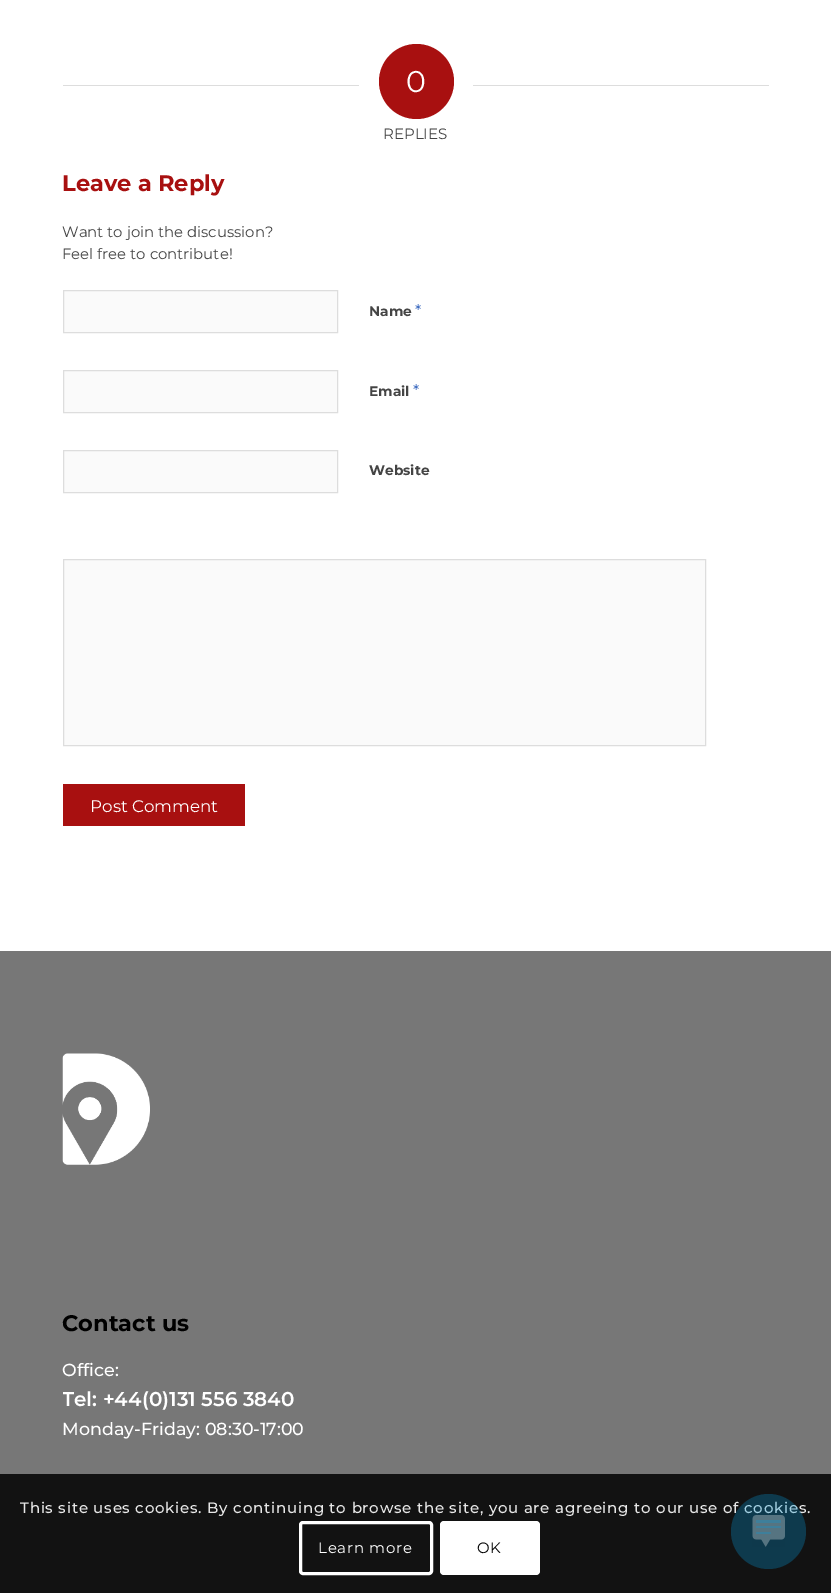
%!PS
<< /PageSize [831 1593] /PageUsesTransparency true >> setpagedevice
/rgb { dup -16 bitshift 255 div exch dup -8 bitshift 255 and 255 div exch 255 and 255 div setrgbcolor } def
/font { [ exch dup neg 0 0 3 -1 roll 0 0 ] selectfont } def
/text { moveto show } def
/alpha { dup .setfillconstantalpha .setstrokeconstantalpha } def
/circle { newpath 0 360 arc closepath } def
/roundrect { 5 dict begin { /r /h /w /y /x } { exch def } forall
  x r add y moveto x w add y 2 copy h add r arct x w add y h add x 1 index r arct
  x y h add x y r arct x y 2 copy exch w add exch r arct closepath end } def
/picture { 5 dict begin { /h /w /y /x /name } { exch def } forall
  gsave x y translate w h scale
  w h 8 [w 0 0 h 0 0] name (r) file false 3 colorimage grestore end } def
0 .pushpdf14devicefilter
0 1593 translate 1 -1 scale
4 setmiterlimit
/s1 { /Montserrat-Regular 30 font 16#FFFFFF rgb } def
/s2 { /Montserrat-Regular 15 font 16#444444 rgb } def
/s3 { /Montserrat-Bold 22.5 font 16#A81010 rgb } def
/s4 { /Montserrat-Regular 14.9 font 16#444444 rgb } def
/s5 { /Montserrat-Bold 13.75 font 16#444444 rgb } def
/s6 { /Montserrat-Regular 16 font 16#2C5EBA rgb } def
/s7 { /Montserrat-Regular 16.75 font 16#FFFFFF rgb } def
/s8 { /Montserrat-Bold 22.5 font 16#000000 rgb } def
/s9 { /Montserrat-Medium 17.5 font 16#FFFFFF rgb } def
/s10 { /Montserrat-SemiBold 20 font 16#FFFFFF rgb } def
16#FFFFFF rgb
0 0 831 1593 rectfill
16#DDDDDD rgb
63 85 296 1 rectfill
16#A81010 rgb
416.5 81.5 37.5 circle fill
s1
(0) 406 92 text
16#DDDDDD rgb
473 85 296 1 rectfill
s2
(REPLIES) 383 139 text
s3
(Leave a Reply) 62 191 text
s4
(Want to join the discussion?) 62 237 text
(Feel free to contribute!) 62 259 text
16#FAFAFA rgb
63.5 290.5 moveto 337.5 290.5 lineto 337.5 332.5 lineto 63.5 332.5 lineto closepath gsave fill grestore
16#DDDDDD rgb
stroke
s5
(Name) 369 316 text
s6
(*) 415 316 text
16#FAFAFA rgb
63.5 370.5 moveto 337.5 370.5 lineto 337.5 412.5 lineto 63.5 412.5 lineto closepath gsave fill grestore
16#DDDDDD rgb
stroke
s5
(Email) 369 396 text
s6
(*) 413 396 text
16#FAFAFA rgb
63.5 450.5 moveto 337.5 450.5 lineto 337.5 492.5 lineto 63.5 492.5 lineto closepath gsave fill grestore
16#DDDDDD rgb
stroke
s5
(Website) 369 475 text
16#FAFAFA rgb
63.5 559.5 moveto 705.5 559.5 lineto 705.5 745.5 lineto 63.5 745.5 lineto closepath gsave fill grestore
16#DDDDDD rgb
stroke
16#A81010 rgb
63 784 182 42 rectfill
s7
(Post Comment) 90 812 text
16#777777 rgb
0 951 831 642 rectfill
(pic1.raw) 62 1053 88 112 picture
s8
(Contact us) 62 1331 text
s9
(Office:) 62 1376 text
gsave
63 1289 706 287 rectclip
s10
(Tel: +44\(0\)131 556 3840) 62 1406 text
grestore
(Monday-Friday: 08:30-17:00) 62 1435 text
0.85 alpha
16#000000 rgb
0 1474 831 119 rectfill
/Montserrat-Medium 15 font
1 alpha
16#E7E7E7 rgb
20 1513 moveto 0.75 0 (This site uses cookies. By continuing to browse the site, you are agreeing to our use of cookies.) ashow
0.3 alpha
16#0596D4 rgb
768.5 1531.5 37.5 circle fill
1 alpha
(pic2.raw) 752 1515 33 32 picture
16#FFFFFF rgb
3 setlinewidth
300.5 1522.5 131 51 2.5 roundrect stroke
/Montserrat-Regular 15 font
318 1553 moveto 0.75 0 (Learn more) ashow
440 1521 100 54 4 roundrect fill
16#000000 rgb
477 1553 moveto 0.75 0 (OK) ashow
.poppdf14devicefilter showpage
